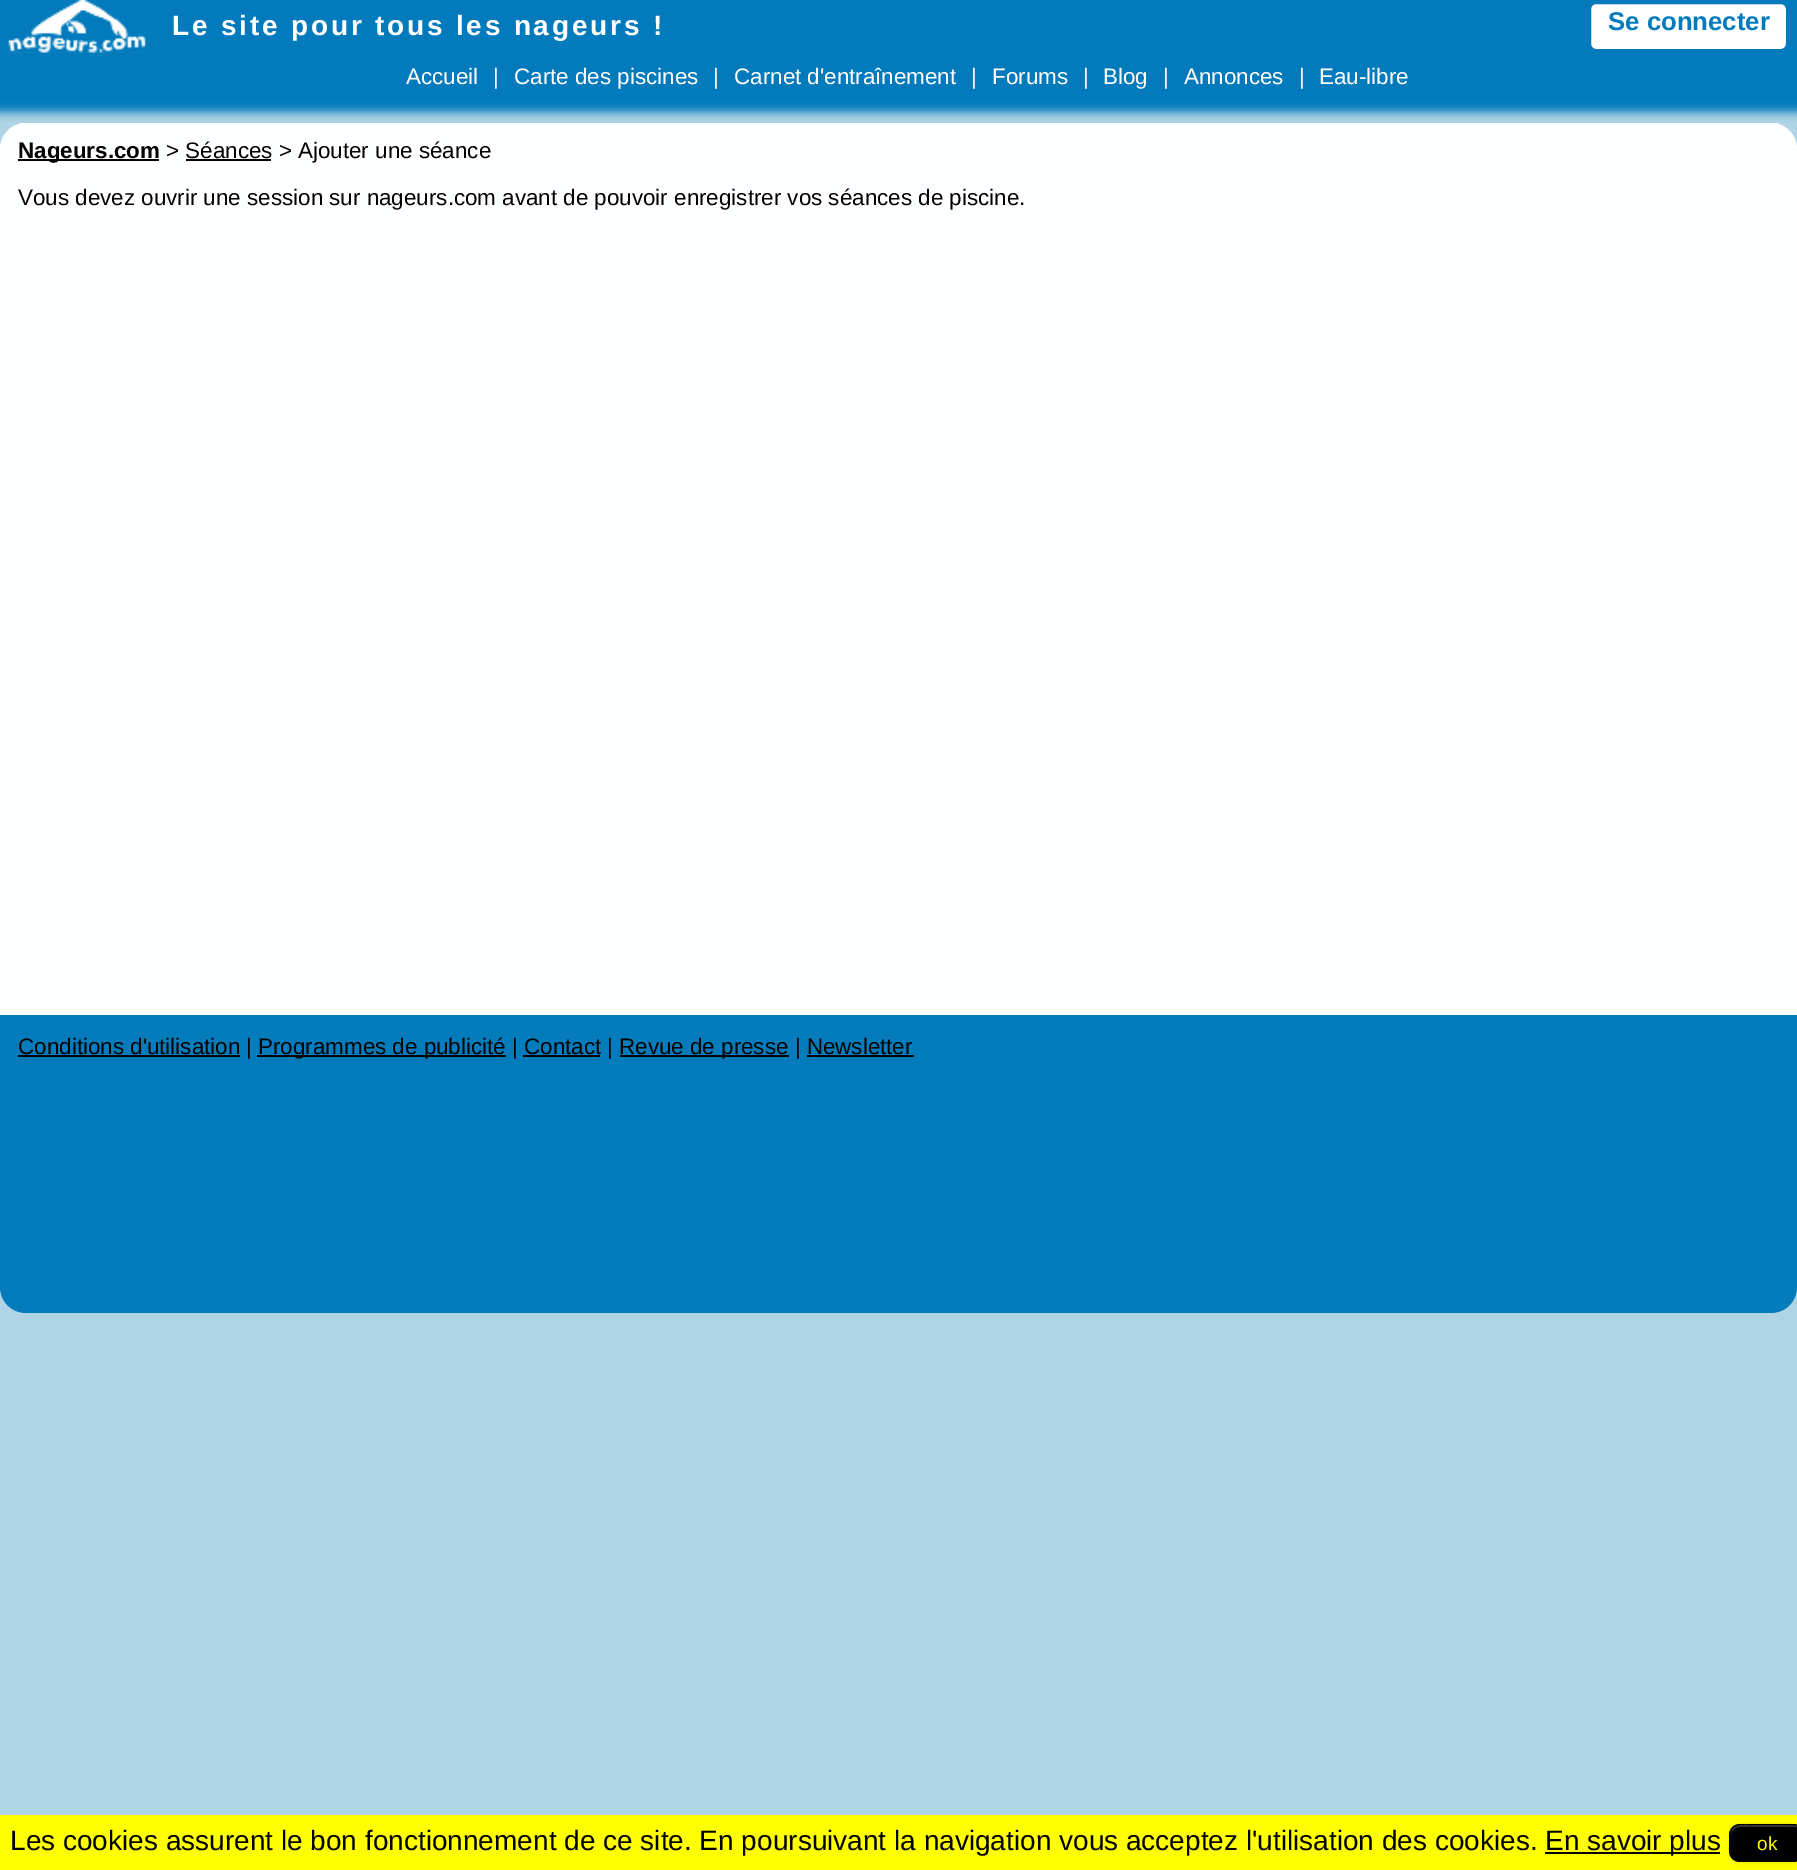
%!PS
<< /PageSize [1797 1870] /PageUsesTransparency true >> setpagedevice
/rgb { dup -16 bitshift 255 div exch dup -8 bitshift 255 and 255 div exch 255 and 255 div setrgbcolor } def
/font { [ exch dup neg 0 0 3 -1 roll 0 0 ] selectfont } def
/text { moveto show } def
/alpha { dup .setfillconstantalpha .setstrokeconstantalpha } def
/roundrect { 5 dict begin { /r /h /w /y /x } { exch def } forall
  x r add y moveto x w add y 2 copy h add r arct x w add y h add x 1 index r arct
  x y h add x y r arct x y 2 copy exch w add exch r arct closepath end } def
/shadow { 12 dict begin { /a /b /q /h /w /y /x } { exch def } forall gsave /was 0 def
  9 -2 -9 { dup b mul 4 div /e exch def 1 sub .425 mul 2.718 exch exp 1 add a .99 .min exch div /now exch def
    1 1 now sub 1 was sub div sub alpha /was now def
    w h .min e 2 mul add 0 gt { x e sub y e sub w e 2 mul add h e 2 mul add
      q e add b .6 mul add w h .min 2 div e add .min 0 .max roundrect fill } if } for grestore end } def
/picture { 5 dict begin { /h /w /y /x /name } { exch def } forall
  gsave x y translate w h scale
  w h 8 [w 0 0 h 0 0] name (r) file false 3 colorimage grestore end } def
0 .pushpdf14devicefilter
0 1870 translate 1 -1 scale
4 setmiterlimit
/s1 { /LiberationSans-Bold 25.75 font 16#027ABB rgb } def
/s2 { /LiberationSans-Regular 22.4 font 16#FFFFFF rgb } def
/s3 { /LiberationSans-Bold 22.4 font 16#020202 rgb } def
/s4 { /LiberationSans-Regular 22.4 font 16#020202 rgb } def
/s5 { /LiberationSans-Regular 28 font 16#020202 rgb } def
/s6 { /LiberationSans-Regular 19 font 16#FFFF00 rgb } def
16#AED4E5 rgb
0 0 1797 1870 rectfill
16#027ABB rgb
-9 44 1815 68 0 4.5 1 shadow
0 53 1797 50 rectfill
-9 -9 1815 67 0 4.5 1 shadow
0 0 1797 39 rectfill
(pic1.raw) 8 0 138 53 picture
/LiberationSans-Bold 28 font
16#FFFFFF rgb
172 35 moveto 2.8 0 (Le site pour tous les nageurs !) ashow
1589 2 199 49 7 roundrect gsave fill grestore
16#027ABB rgb
4 setlinewidth
stroke
s1
(Se connecter) 1608 30 text
s2
(Accueil) 406 84 text
(|) 493 84 text
(Carte des piscines) 514 84 text
(|) 713 84 text
(Carnet d'entraînement) 734 84 text
(|) 971 84 text
(Forums) 992 84 text
(|) 1083 84 text
(Blog) 1103 84 text
(|) 1163 84 text
(Annonces) 1184 84 text
(|) 1299 84 text
(Eau-libre) 1319 84 text
16#FEFFFF rgb
0 123 1797 1190 26 roundrect fill
gsave
0 123 1797 1190 26 roundrect clip newpath
18 123 1762 875 rectfill
grestore
16#020202 rgb
18 159 141 2 rectfill
s3
(Nageurs.com) 18 158 text
s4
(> Séances > Ajouter une séance) 166 158 text
186 159 85 2 rectfill
(Vous devez ouvrir une session sur nageurs.com avant de pouvoir enregistrer vos séances de piscine.) 18 205 text
16#047BBB rgb
0 1015 moveto 1797 1015 lineto 1797 1287 lineto 1797 1301.5 1785.5 1313 1771 1313 curveto 26 1313 lineto 11.5 1313 0 1301.5 0 1287 curveto closepath fill
16#020202 rgb
18 1055 222 2 rectfill
(Conditions d'utilisation |) 18 1054 text
257 1055 249 2 rectfill
(Programmes de publicité | Contact |) 258 1054 text
620 1055 169 2 rectfill
(Revue de presse | Newsletter) 619 1054 text
523 1055 77 2 rectfill
807 1055 107 2 rectfill
16#FFFF00 rgb
0 1815 1797 55 rectfill
s5
(Les cookies assurent le bon fonctionnement de ce site. En poursuivant la navigation vous acceptez l'utilisation des cookies.) 10 1850 text
16#000000 rgb
1545 1852 175 2 rectfill
s5
(En savoir plus) 1545 1850 text
16#000000 rgb
1729 1825 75 39 11 2 0.05 shadow
1729 1824 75 38 11 roundrect fill
16#333333 rgb
1740 1827 moveto 1785 1827 lineto 1792 1827 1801 1825 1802 1834 curveto 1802 1856 lineto 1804 1851 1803 1844 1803 1840 curveto 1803 1825 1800 1825 1785 1825 curveto 1749 1825 lineto 1739 1825 1731 1824 1731 1836 curveto 1731 1831 1735 1827 1740 1827 curveto closepath fill
0.25 alpha
16#000000 rgb
1.8 setlinewidth
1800.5 1858.5 moveto 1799 1860 1796.5 1861 1794 1861 curveto 1739.5 1861 lineto 1737 1861 1734.5 1860 1732.5 1858.5 curveto stroke
0.1 alpha
1732.5 1858.5 moveto 1728 1853.5 1730 1845.5 1730 1840 curveto 1730 1824 1733.5 1824.5 1748.5 1824.5 curveto 1784.5 1824.5 lineto 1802.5 1824.5 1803.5 1825.5 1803.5 1843 curveto 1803.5 1848 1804.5 1854.5 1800.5 1858.5 curveto stroke
1 alpha
s6
(ok) 1757 1850 text
.poppdf14devicefilter showpage
